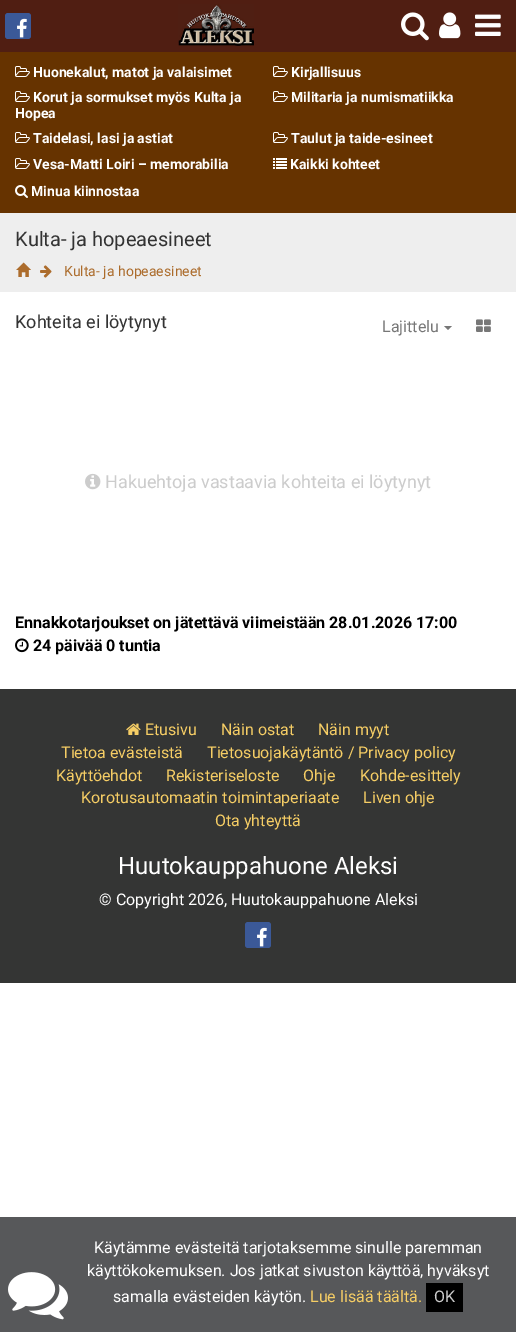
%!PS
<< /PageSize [516 1332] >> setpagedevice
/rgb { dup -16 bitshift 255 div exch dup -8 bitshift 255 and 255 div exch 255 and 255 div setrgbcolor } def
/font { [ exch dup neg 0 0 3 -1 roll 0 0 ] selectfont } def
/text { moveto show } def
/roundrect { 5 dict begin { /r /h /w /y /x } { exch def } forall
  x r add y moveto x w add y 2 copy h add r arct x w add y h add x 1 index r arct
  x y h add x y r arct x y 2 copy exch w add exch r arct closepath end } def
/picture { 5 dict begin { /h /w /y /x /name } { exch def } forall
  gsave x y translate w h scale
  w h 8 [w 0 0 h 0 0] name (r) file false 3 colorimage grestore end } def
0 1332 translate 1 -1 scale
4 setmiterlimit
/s1 { /Roboto-Bold 14 font 16#FFFFFF rgb } def
/s2 { /Roboto-Regular 20 font 16#333333 rgb } def
/s3 { /Roboto-Regular 14 font 16#AC6C2C rgb } def
/s4 { /Roboto-Regular 18 font 16#333333 rgb } def
/s5 { /Roboto-Regular 16 font 16#777777 rgb } def
/s6 { /Roboto-Regular 18 font 16#CCCCCC rgb } def
/s7 { /Roboto-Bold 16 font 16#000000 rgb } def
/s8 { /Roboto-Regular 16 font 16#F5CD65 rgb } def
/s9 { /Roboto-Regular 24 font 16#FFFFFF rgb } def
/s10 { /Roboto-Regular 16 font 16#FFFFFF rgb } def
/s11 { /Roboto-Regular 16 font 16#CCCCCC rgb } def
16#FFFFFF rgb
0 0 516 1332 rectfill
16#501E12 rgb
0 0 516 52 rectfill
16#3B5998 rgb
5 13 26 26 3 roundrect fill
(pic1.raw) 17 18 10 20 picture
(pic2.raw) 178 4 76 42 picture
(pic3.raw) 401 12 28 29 picture
(pic4.raw) 439 12 22 27 picture
(pic5.raw) 475 14 26 22 picture
16#663300 rgb
0 52 516 161 rectfill
(pic6.raw) 15 66 15 11 picture
s1
(Huonekalut, matot ja valaisimet) 33 77 text
(pic6.raw) 273 66 15 11 picture
(Kirjallisuus) 291 77 text
(pic6.raw) 15 91 15 11 picture
(Korut ja sormukset myös Kulta ja) 33 102 text
(Hopea) 15 118 text
(pic6.raw) 273 91 15 11 picture
(Militaria ja numismatiikka) 291 102 text
(pic6.raw) 15 132 15 11 picture
(Taidelasi, lasi ja astiat) 33 143 text
(pic6.raw) 273 132 15 11 picture
(Taulut ja taide-esineet) 291 143 text
(pic6.raw) 15 158 15 11 picture
(Vesa-Matti Loiri – memorabilia) 33 169 text
(pic7.raw) 273 158 14 11 picture
(Kaikki kohteet) 290 169 text
(pic8.raw) 15 185 13 13 picture
(Minua kiinnostaa) 31 196 text
16#EEEEEE rgb
0 213 516 79 rectfill
s2
(Kulta- ja hopeaesineet) 15 246 text
(pic9.raw) 16 262 15 15 picture
(pic10.raw) 40 265 12 13 picture
s3
(Kulta- ja hopeaesineet) 64 276 text
s4
(Kohteita ei löytynyt) 15 328 text
s5
(Lajittelu) 382 332 text
444 326 moveto 452 326 lineto 448 330 lineto closepath fill
(pic11.raw) 476 319 15 13 picture
(pic12.raw) 85 473 16 17 picture
s6
(Hakuehtoja vastaavia kohteita ei löytynyt) 105 488 text
s7
(Ennakkotarjoukset on jätettävä viimeistään 28.01.2026 17:00) 15 628 text
(pic13.raw) 15 638 14 15 picture
(24 päivää 0 tuntia) 33 651 text
16#57585A rgb
0 1217 516 115 rectfill
(pic14.raw) 8 1272 60 48 picture
16#343534 rgb
0 689 516 294 rectfill
(pic15.raw) 126 723 15 12 picture
s8
(Etusivu) 145 735 text
(Näin ostat) 221 735 text
(Näin myyt) 318 735 text
(Tietoa evästeistä) 61 758 text
(Tietosuojakäytäntö / Privacy policy) 207 758 text
(Käyttöehdot) 56 781 text
(Rekisteriseloste) 166 781 text
(Ohje) 303 781 text
(Kohde-esittely) 360 781 text
(Korotusautomaatin toimintaperiaate) 81 803 text
(Liven ohje) 363 803 text
(Ota yhteyttä) 215 826 text
s9
(Huutokauppahuone Aleksi) 118 874 text
s10
(© Copyright 2026, Huutokauppahuone Aleksi) 99 905 text
16#3B5998 rgb
245 922 26 26 3 roundrect fill
(pic1.raw) 257 927 10 20 picture
s10
(Käytämme evästeitä tarjotaksemme sinulle paremman) 94 1253 text
(käyttökokemuksen. Jos jatkat sivuston käyttöä, hyväksyt) 87 1276 text
(samalla evästeiden käytön.) 113 1302 text
s8
(Lue lisää täältä.) 310 1302 text
16#000000 rgb
426 1283 37 29 rectfill
s11
(OK) 434 1302 text
showpage
